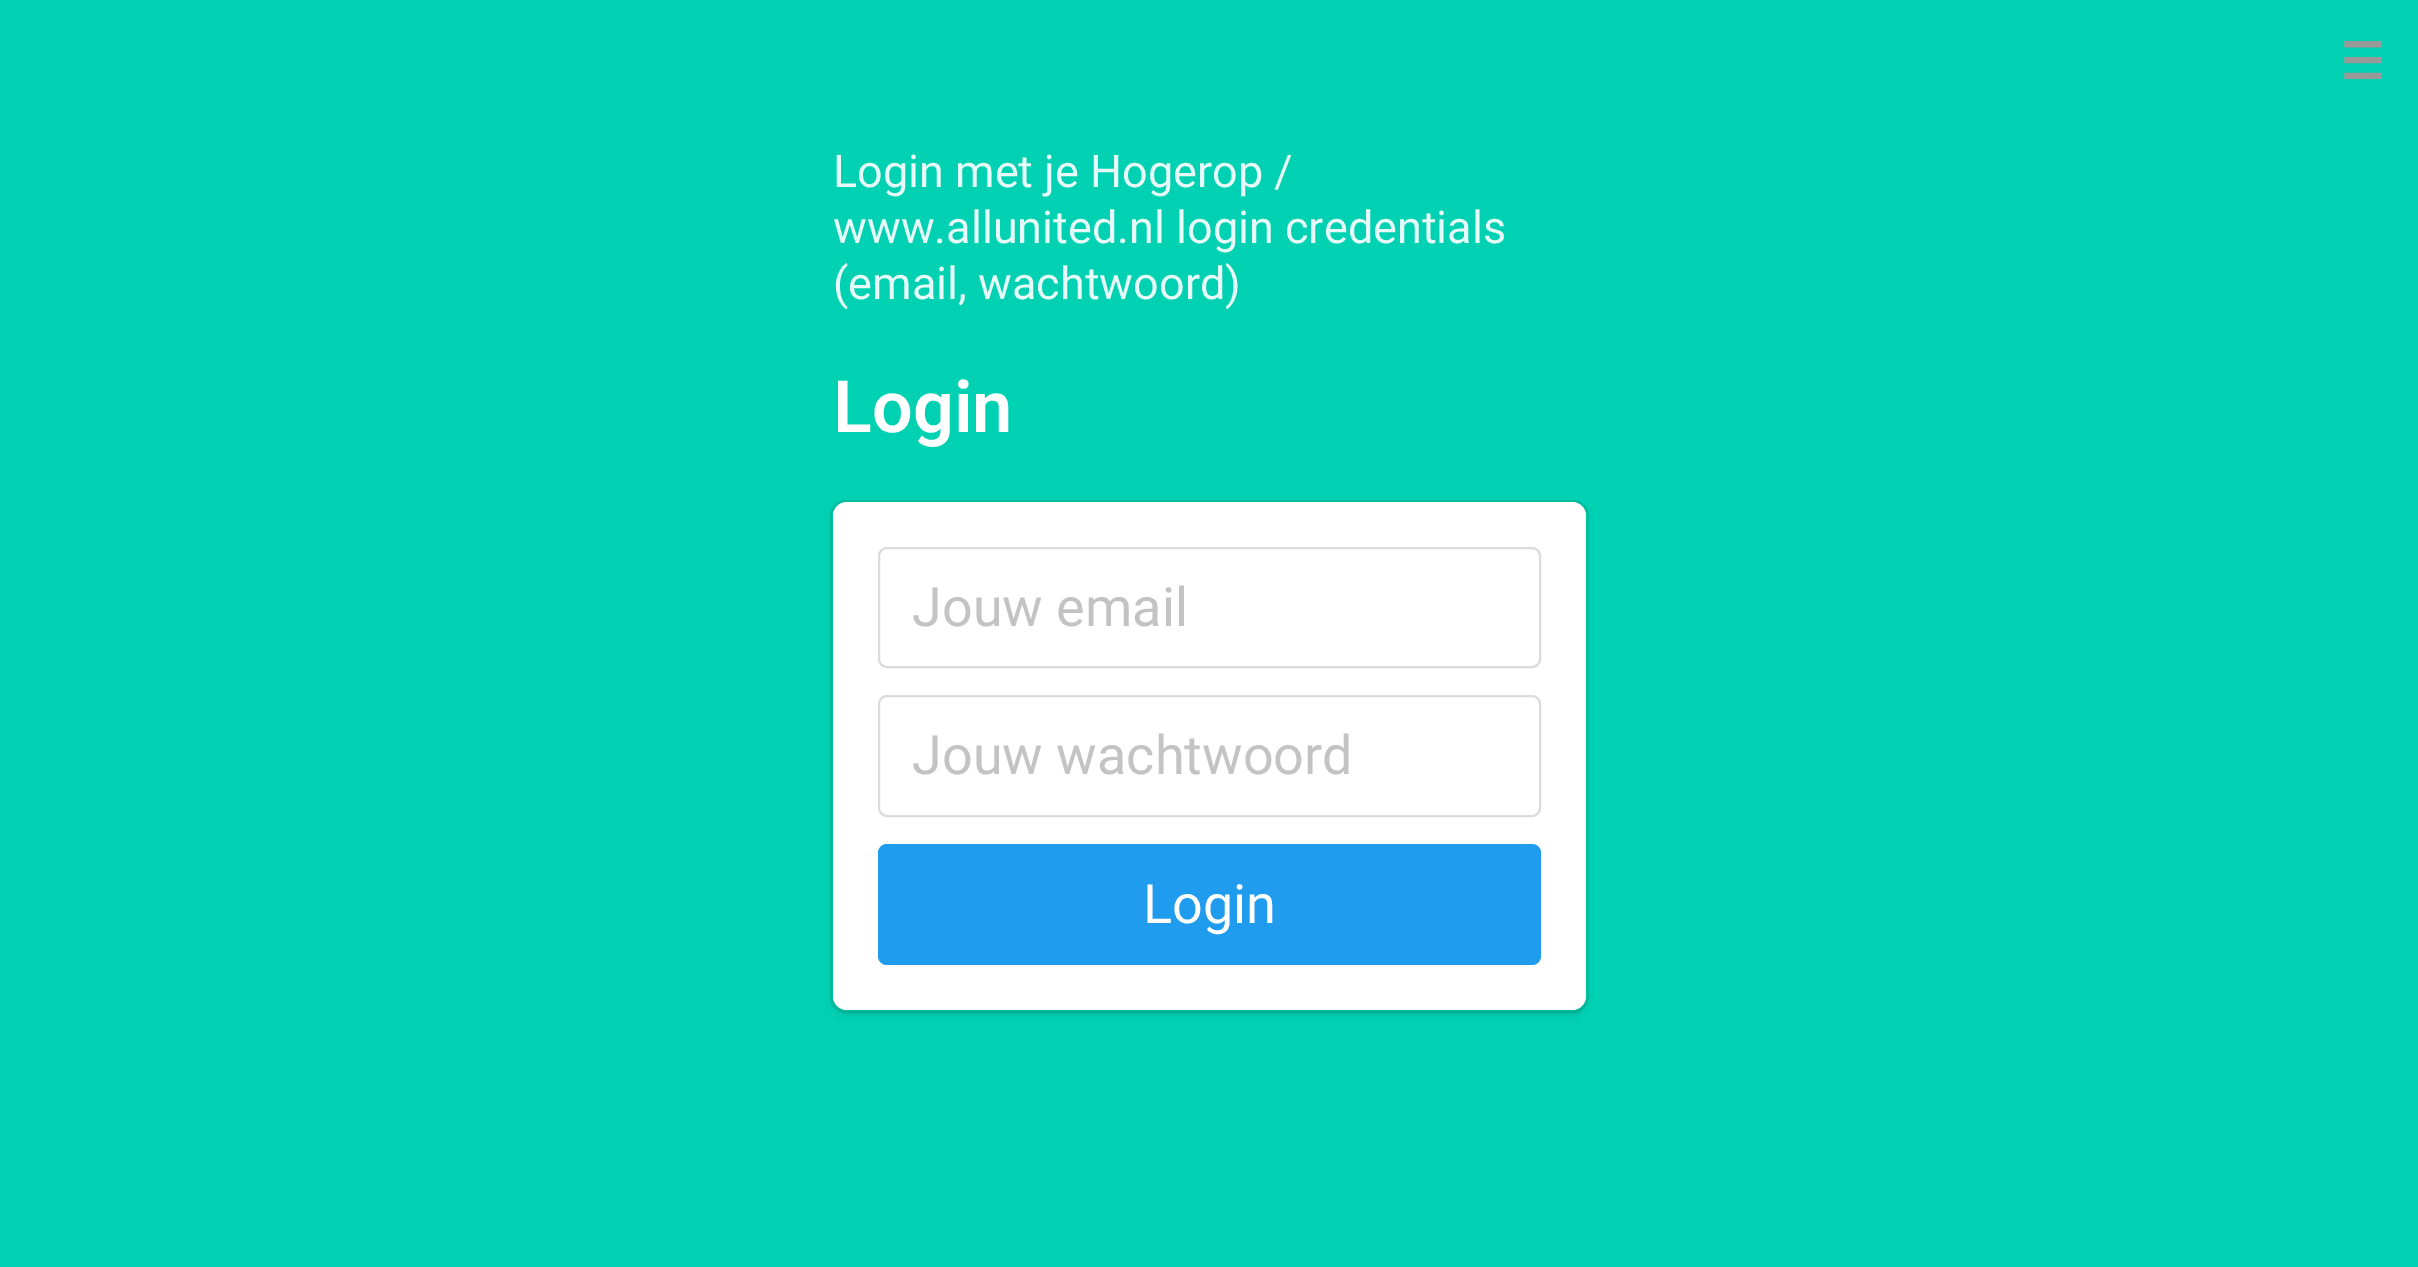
%!PS
<< /PageSize [2418 1267] /PageUsesTransparency true >> setpagedevice
/rgb { dup -16 bitshift 255 div exch dup -8 bitshift 255 and 255 div exch 255 and 255 div setrgbcolor } def
/font { [ exch dup neg 0 0 3 -1 roll 0 0 ] selectfont } def
/text { moveto show } def
/alpha { dup .setfillconstantalpha .setstrokeconstantalpha } def
/roundrect { 5 dict begin { /r /h /w /y /x } { exch def } forall
  x r add y moveto x w add y 2 copy h add r arct x w add y h add x 1 index r arct
  x y h add x y r arct x y 2 copy exch w add exch r arct closepath end } def
/shadow { 12 dict begin { /a /b /q /h /w /y /x } { exch def } forall gsave /was 0 def
  9 -2 -9 { dup b mul 4 div /e exch def 1 sub .425 mul 2.718 exch exp 1 add a .99 .min exch div /now exch def
    1 1 now sub 1 was sub div sub alpha /was now def
    w h .min e 2 mul add 0 gt { x e sub y e sub w e 2 mul add h e 2 mul add
      q e add b .6 mul add w h .min 2 div e add .min 0 .max roundrect fill } if } for grestore end } def
0 .pushpdf14devicefilter
0 1267 translate 1 -1 scale
4 setmiterlimit
/s1 { /DejaVuSans-Bold 50 font 16#999999 rgb } def
/s2 { /Roboto-Regular 45 font 16#E6FAF7 rgb } def
/s3 { /Roboto-SemiBold 72 font 16#FFFFFF rgb } def
/s4 { /Roboto-Regular 54 font 16#C3C3C3 rgb } def
/s5 { /Roboto-Regular 54 font 16#FFFFFF rgb } def
16#00D1B2 rgb
0 0 2418 1267 rectfill
s1
(☰) 2340 79 text
s2
(Login met je Hogerop /) 833 187 text
(www.allunited.nl login credentials) 833 243 text
(\(email, wachtwoord\)) 833 299 text
s3
(Login) 833 432 text
16#01BDA1 rgb
2 setlinewidth
831 501 757 511 15 roundrect stroke
16#0A0A0A rgb
833 506 753 509 14 3.5 0.1 shadow
16#FFFFFF rgb
833 502 753 508 14 roundrect fill
16#DBDBDB rgb
879 548 661 119 8 roundrect stroke
s4
(Jouw email) 912 626 text
16#DBDBDB rgb
879 696 661 120 8 roundrect stroke
s4
(Jouw wachtwoord) 912 774 text
16#209CEE rgb
878 844 663 121 9 roundrect fill
s5
(Login) 1143 923 text
.poppdf14devicefilter showpage
